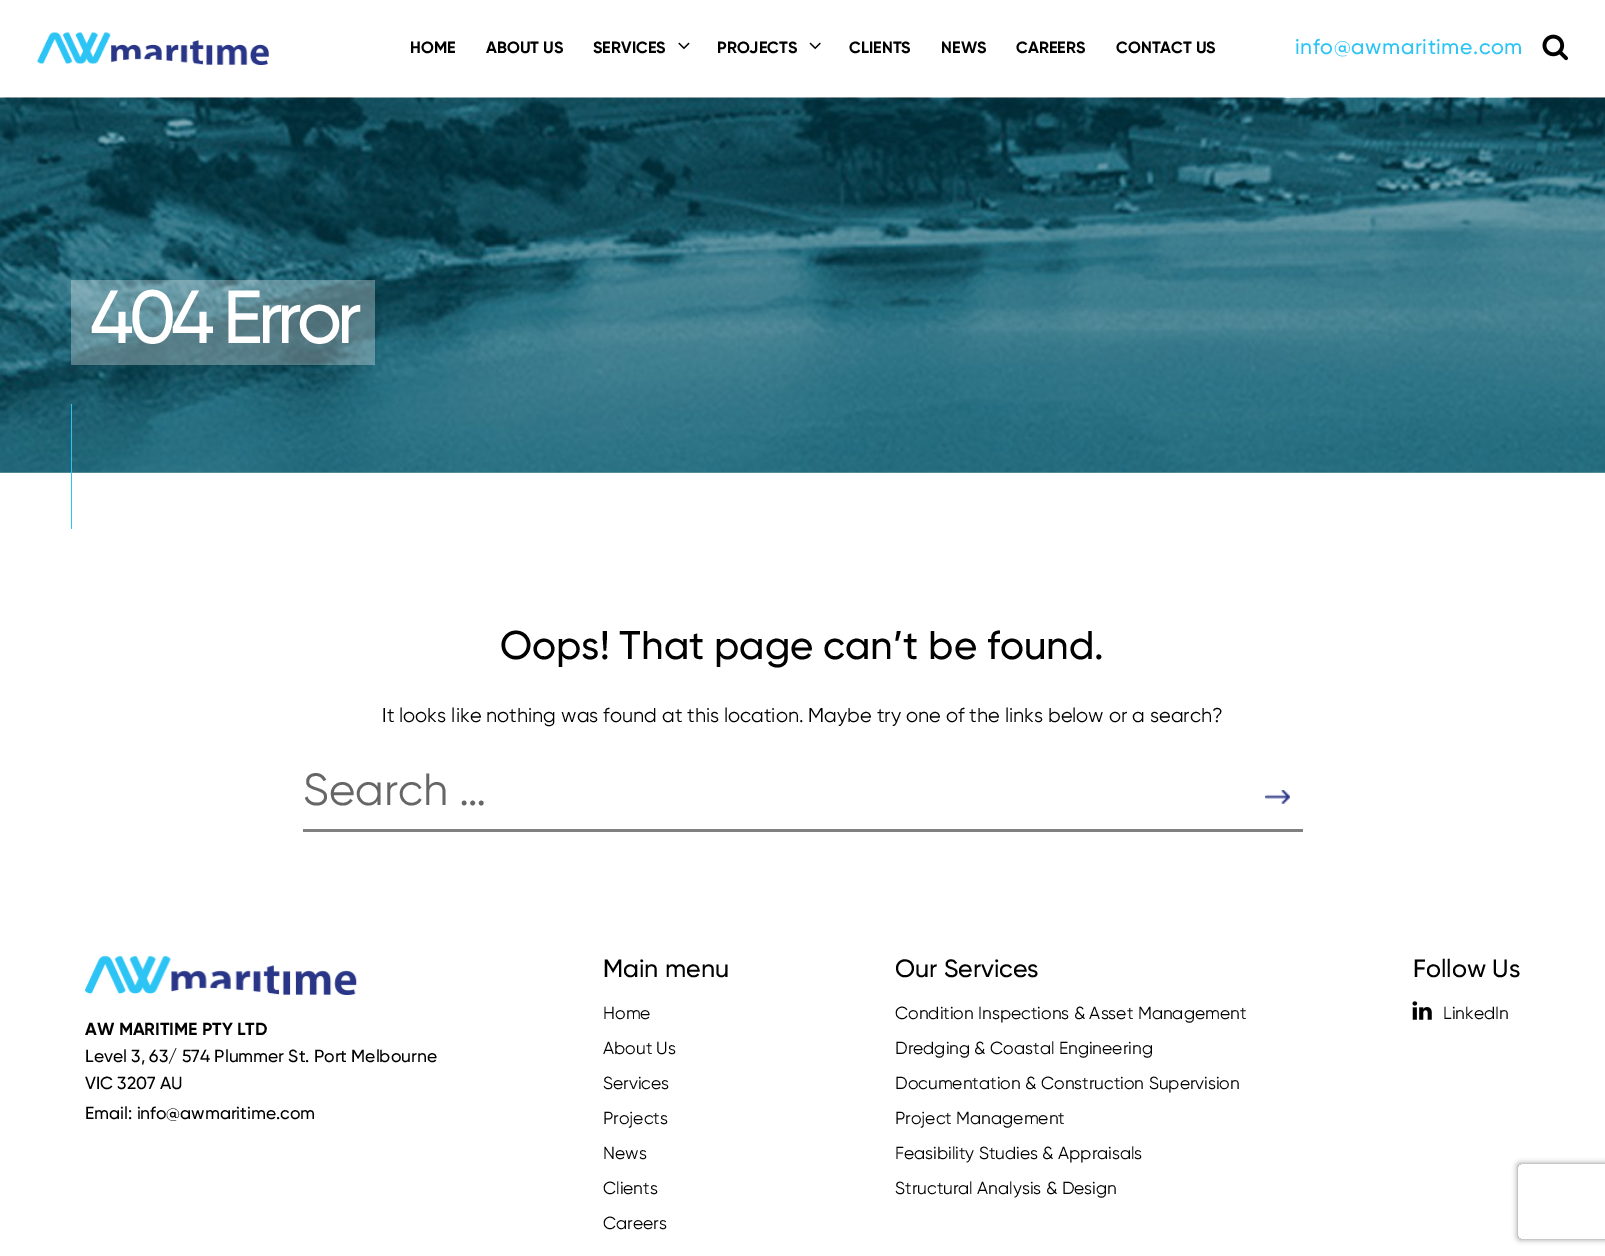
%!PS
<< /PageSize [1605 1256] /PageUsesTransparency true >> setpagedevice
/rgb { dup -16 bitshift 255 div exch dup -8 bitshift 255 and 255 div exch 255 and 255 div setrgbcolor } def
/font { [ exch dup neg 0 0 3 -1 roll 0 0 ] selectfont } def
/text { moveto show } def
/alpha { dup .setfillconstantalpha .setstrokeconstantalpha } def
/roundrect { 5 dict begin { /r /h /w /y /x } { exch def } forall
  x r add y moveto x w add y 2 copy h add r arct x w add y h add x 1 index r arct
  x y h add x y r arct x y 2 copy exch w add exch r arct closepath end } def
/shadow { 12 dict begin { /a /b /q /h /w /y /x } { exch def } forall gsave /was 0 def
  9 -2 -9 { dup b mul 4 div /e exch def 1 sub .425 mul 2.718 exch exp 1 add a .99 .min exch div /now exch def
    1 1 now sub 1 was sub div sub alpha /was now def
    w h .min e 2 mul add 0 gt { x e sub y e sub w e 2 mul add h e 2 mul add
      q e add b .6 mul add w h .min 2 div e add .min 0 .max roundrect fill } if } for grestore end } def
/picture { 5 dict begin { /h /w /y /x /name } { exch def } forall
  gsave x y translate w h scale
  w h 8 [w 0 0 h 0 0] name (r) file false 3 colorimage grestore end } def
0 .pushpdf14devicefilter
0 1256 translate 1 -1 scale
4 setmiterlimit
/s1 { /Gilroy-Bold 16.25 font 16#000000 rgb } def
/s2 { /Gilroy-Medium 40 font 16#000000 rgb } def
/s3 { /Gilroy-Regular 20 font 16#000000 rgb } def
/s4 { /Gilroy-Regular 45 font 16#666666 rgb } def
/s5 { /Gilroy-Bold 17.5 font 16#000000 rgb } def
/s6 { /Gilroy-Medium 17.5 font 16#000000 rgb } def
/s7 { /Gilroy-Medium 25 font 16#000000 rgb } def
/s8 { /Gilroy-Regular 17.5 font 16#000000 rgb } def
16#FFFFFF rgb
0 0 1605 1256 rectfill
16#80A9B4 rgb
0 472 1605 1 rectfill
(pic1.raw) 37 32 232 33 picture
s1
(HOME) 410 53 text
(ABOUT US) 486 53 text
(SERVICES) 593 53 text
(pic2.raw) 678 42 12 8 picture
(PROJECTS) 717 53 text
(pic3.raw) 809 42 12 8 picture
(CLIENTS) 849 53 text
(NEWS) 941 53 text
(CAREERS) 1016 53 text
(CONTACT US) 1116 53 text
/Gilroy-Medium 21.25 font
16#2CC4F4 rgb
1295 54 moveto 0.6 0 (info@awmaritime.com) ashow
(pic4.raw) 1542 34 26 27 picture
(pic5.raw) 0 97 1605 376 picture
0.3 alpha
16#FFFFFF rgb
71 280 304 85 rectfill
/Gilroy-Medium 75 font
1 alpha
90 343 moveto -5 0 (404 Error) ashow
16#2CC4F4 rgb
71 404 1 125 rectfill
s2
(Oops! That page can’t be found.) 500 659 text
s3
(It looks like nothing was found at this location. Maybe try one of the links below or a search?) 382 722 text
16#808080 rgb
303 829 1000 3 rectfill
s4
(Search …) 303 805 text
(pic6.raw) 1265 790 25 14 picture
(pic7.raw) 85 956 272 39 picture
s5
(AW MARITIME PTY LTD) 85 1035 text
s6
(Level 3, 63/ 574 Plummer St. Port Melbourne) 85 1062 text
(VIC 3207 AU) 85 1089 text
(Email: info@awmaritime.com) 85 1119 text
s7
(Main menu) 603 977 text
s8
(Home) 603 1019 text
(About Us) 603 1054 text
(Services) 603 1089 text
(Projects) 603 1124 text
(News) 603 1159 text
(Clients) 603 1194 text
(Careers) 603 1229 text
s7
(Our Services) 895 977 text
s8
(Condition Inspections & Asset Management) 895 1019 text
(Dredging & Coastal Engineering) 895 1054 text
(Documentation & Construction Supervision) 895 1089 text
(Project Management) 895 1124 text
(Feasibility Studies & Appraisals) 895 1159 text
(Structural Analysis & Design) 895 1194 text
s7
(Follow Us) 1413 977 text
(pic8.raw) 1412 1001 20 19 picture
s8
(LinkedIn) 1443 1019 text
gsave
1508 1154 moveto 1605 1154 lineto 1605 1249 lineto 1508 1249 lineto closepath 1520.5 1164 moveto 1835.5 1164 lineto 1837 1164 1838 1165 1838 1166.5 curveto 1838 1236.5 lineto 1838 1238 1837 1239 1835.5 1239 curveto 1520.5 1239 lineto 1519 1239 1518 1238 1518 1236.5 curveto 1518 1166.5 lineto 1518 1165 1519 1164 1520.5 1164 curveto closepath eoclip newpath
16#808080 rgb
1518 1164 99 75 2.5 3 1 shadow
grestore
.poppdf14devicefilter showpage
